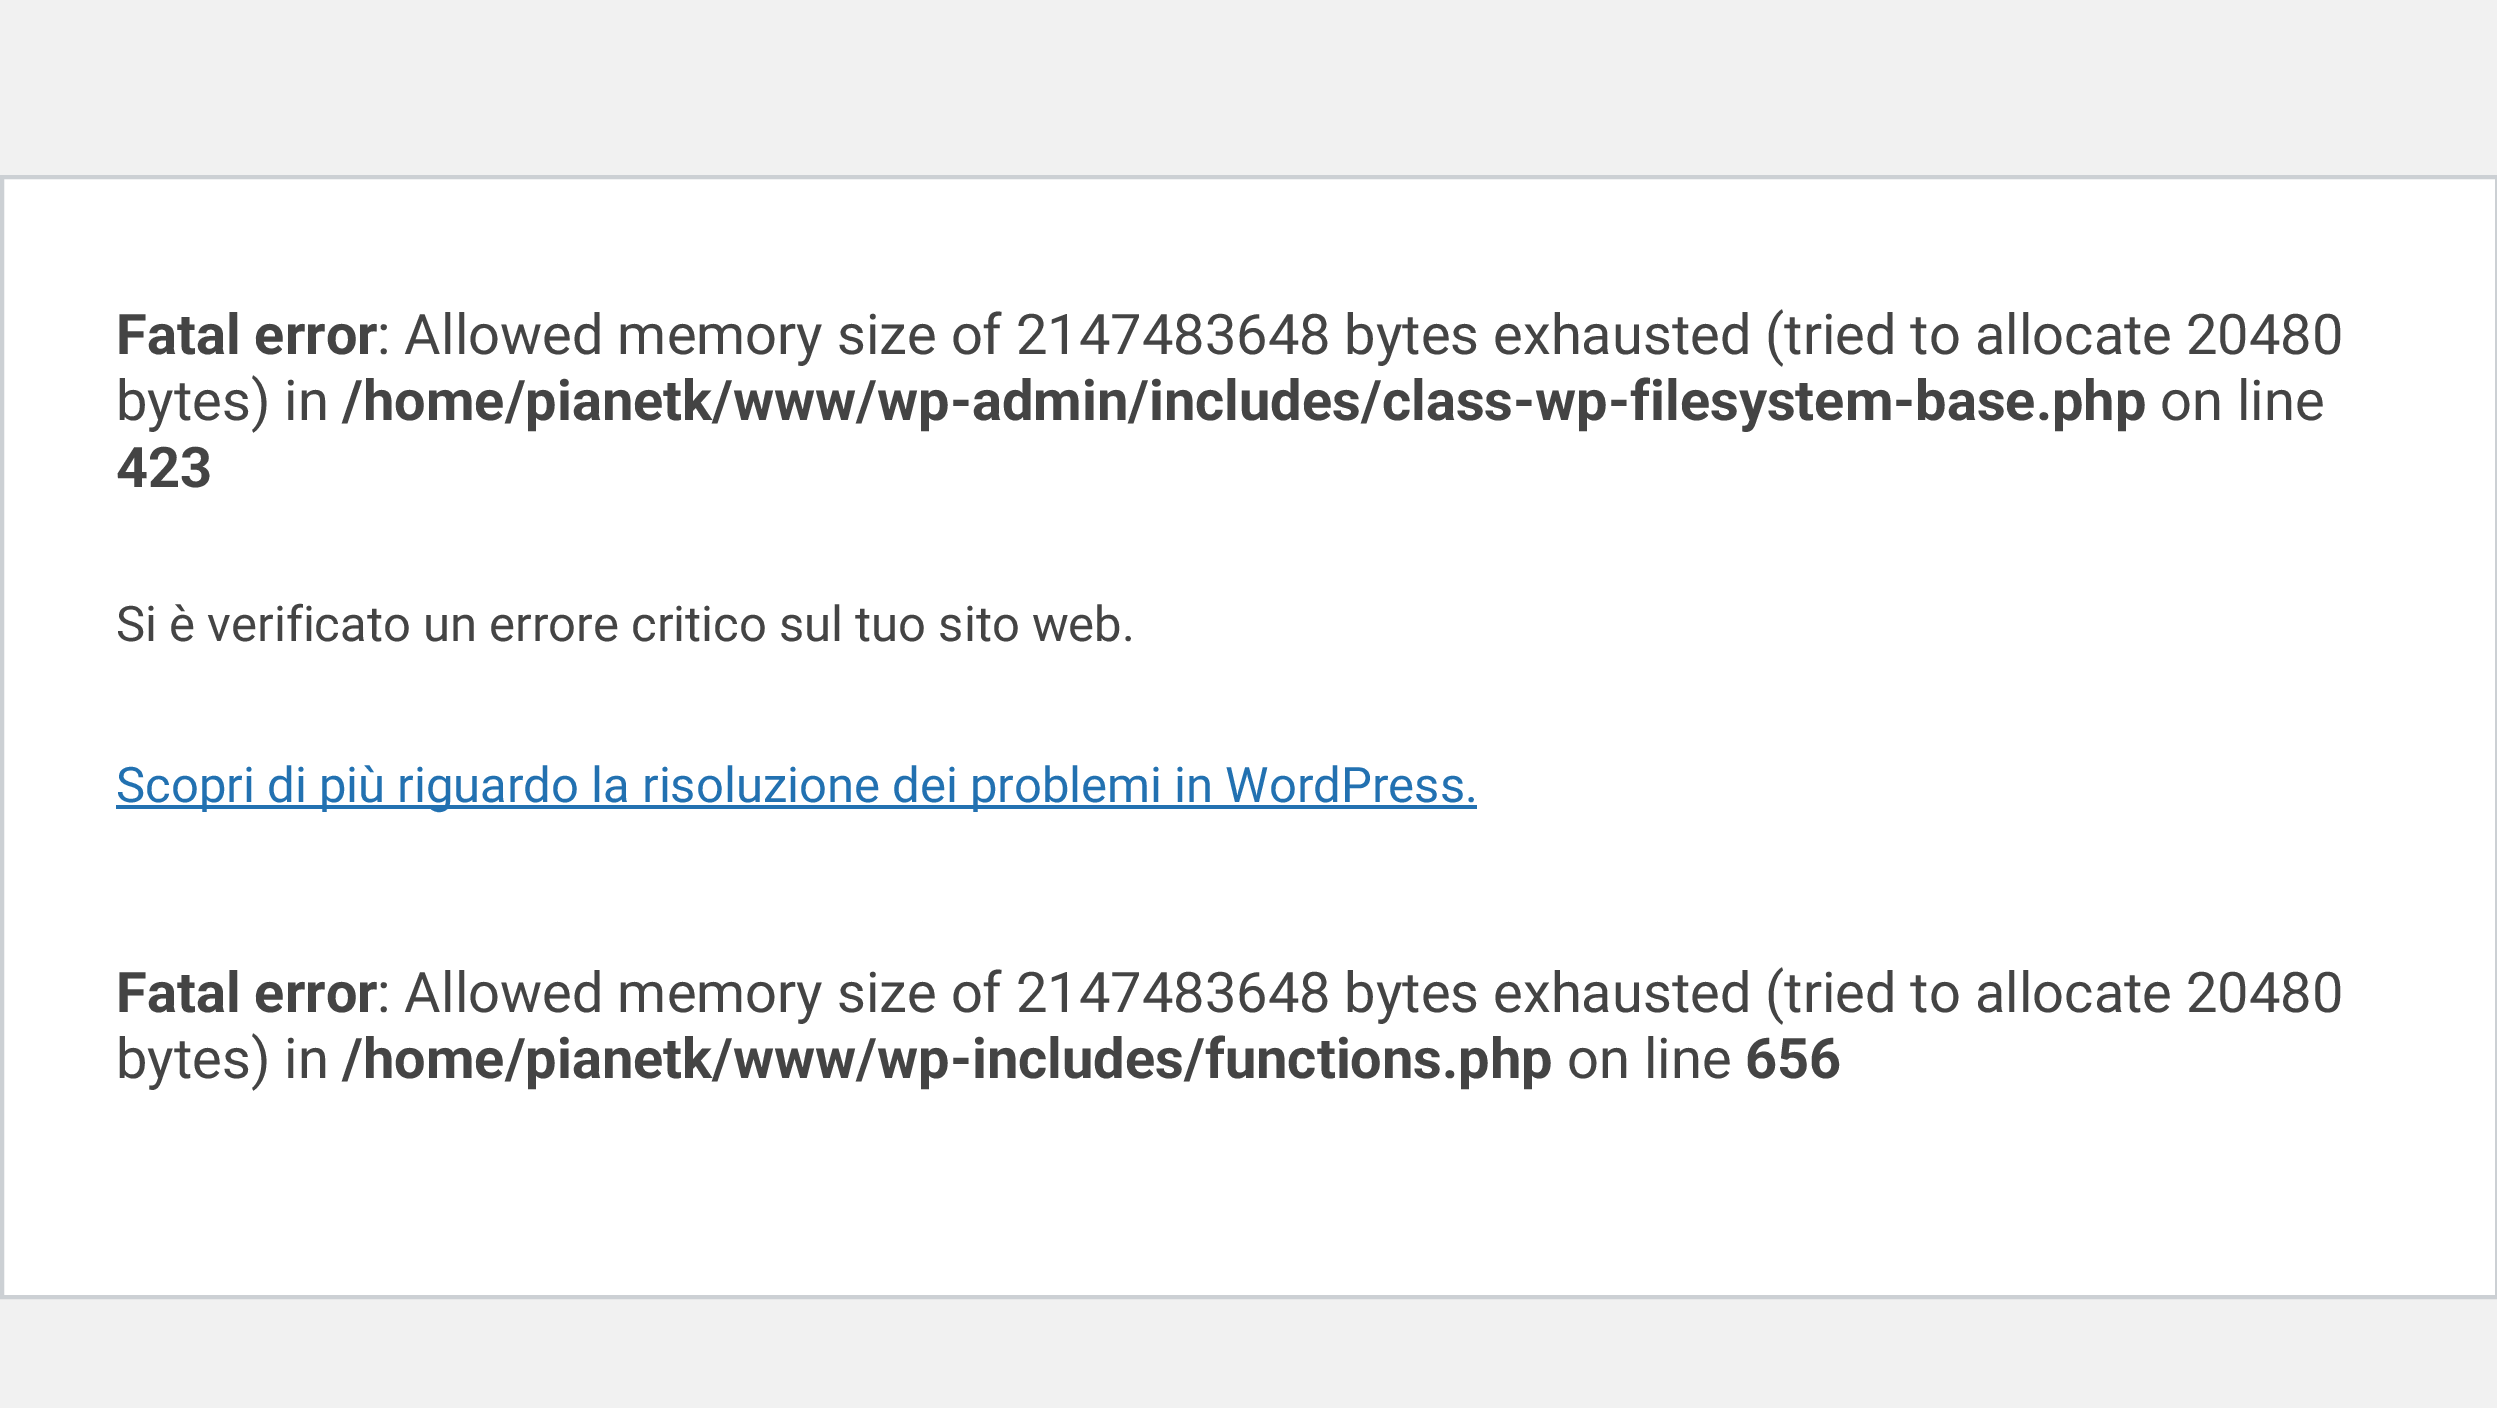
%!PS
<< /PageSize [2497 1408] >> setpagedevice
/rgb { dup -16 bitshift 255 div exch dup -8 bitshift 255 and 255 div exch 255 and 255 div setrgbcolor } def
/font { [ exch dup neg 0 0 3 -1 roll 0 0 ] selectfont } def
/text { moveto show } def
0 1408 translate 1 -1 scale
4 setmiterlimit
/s1 { /Roboto-Bold 56 font 16#444444 rgb } def
/s2 { /Roboto-Regular 56 font 16#444444 rgb } def
/s3 { /Roboto-Regular 49 font 16#444444 rgb } def
/s4 { /Roboto-Regular 49 font 16#2271B1 rgb } def
16#F1F1F1 rgb
0 0 2497 1408 rectfill
16#FFFFFF rgb
2 177 moveto 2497 177 lineto 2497 1297 lineto 2 1297 lineto closepath gsave fill grestore
16#CCD0D4 rgb
4 setlinewidth
stroke
s1
(Fatal error) 116 354 text
s2
(: Allowed memory size of 2147483648 bytes exhausted \(tried to allocate 20480) 377 354 text
(bytes\) in) 116 420 text
s1
(/home/pianetk/www/wp-admin/includes/class-wp-filesystem-base.php) 342 420 text
s2
(on line) 2160 420 text
s1
(423) 116 487 text
s3
(Si è verificato un errore critico sul tuo sito web.) 116 641 text
16#2271B1 rgb
116 805 1361 4 rectfill
(Scopri di più riguardo la risoluzione dei problemi in WordPress.) 116 802 text
s1
(Fatal error) 116 1012 text
s2
(: Allowed memory size of 2147483648 bytes exhausted \(tried to allocate 20480) 377 1012 text
(bytes\) in) 116 1078 text
s1
(/home/pianetk/www/wp-includes/functions.php) 342 1078 text
s2
(on line) 1567 1078 text
s1
(656) 1745 1078 text
showpage
